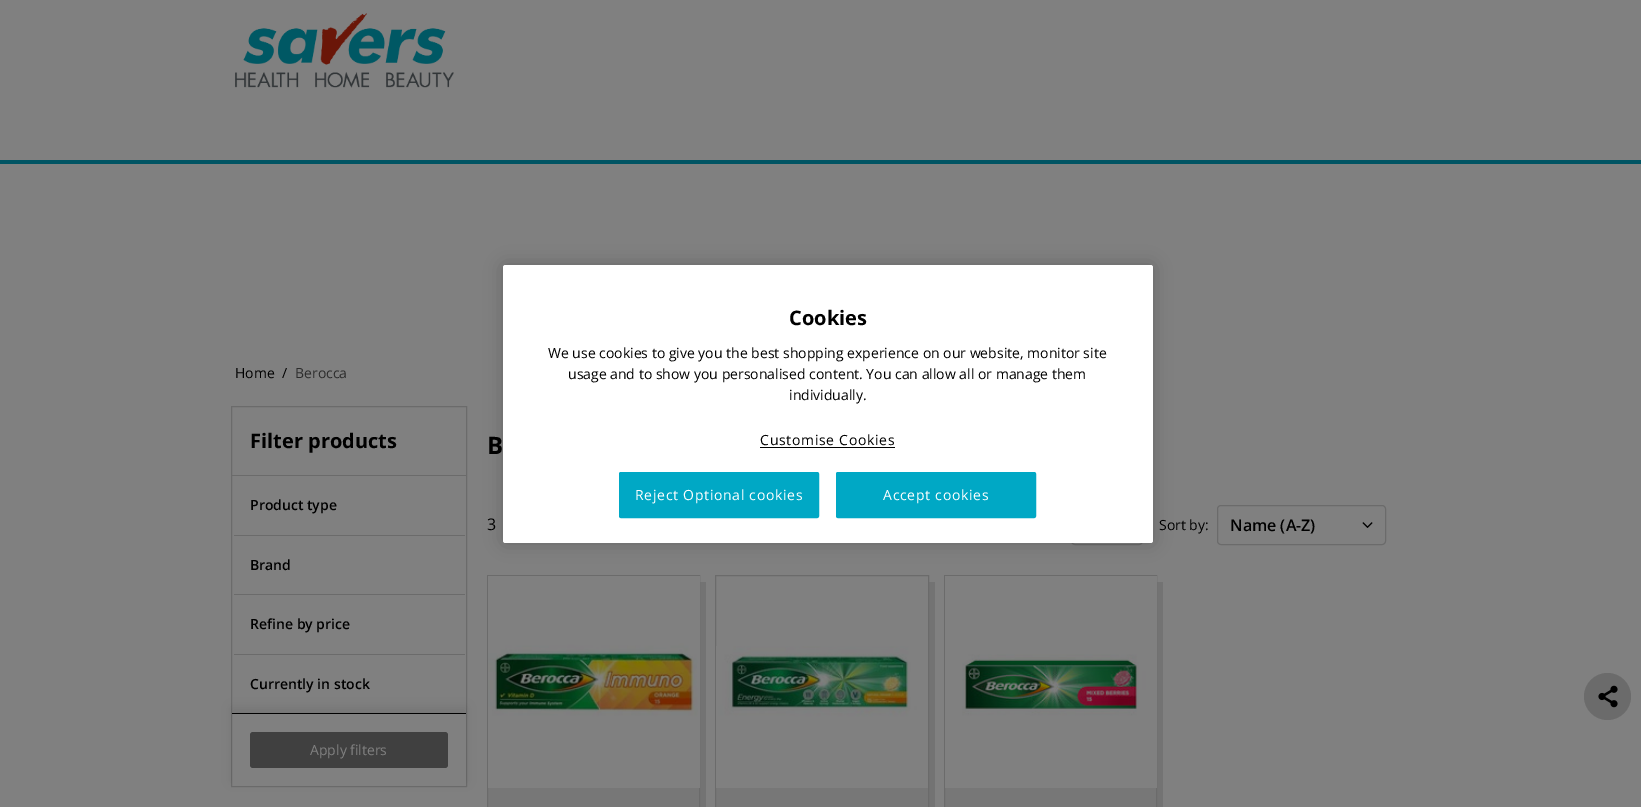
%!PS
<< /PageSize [1641 807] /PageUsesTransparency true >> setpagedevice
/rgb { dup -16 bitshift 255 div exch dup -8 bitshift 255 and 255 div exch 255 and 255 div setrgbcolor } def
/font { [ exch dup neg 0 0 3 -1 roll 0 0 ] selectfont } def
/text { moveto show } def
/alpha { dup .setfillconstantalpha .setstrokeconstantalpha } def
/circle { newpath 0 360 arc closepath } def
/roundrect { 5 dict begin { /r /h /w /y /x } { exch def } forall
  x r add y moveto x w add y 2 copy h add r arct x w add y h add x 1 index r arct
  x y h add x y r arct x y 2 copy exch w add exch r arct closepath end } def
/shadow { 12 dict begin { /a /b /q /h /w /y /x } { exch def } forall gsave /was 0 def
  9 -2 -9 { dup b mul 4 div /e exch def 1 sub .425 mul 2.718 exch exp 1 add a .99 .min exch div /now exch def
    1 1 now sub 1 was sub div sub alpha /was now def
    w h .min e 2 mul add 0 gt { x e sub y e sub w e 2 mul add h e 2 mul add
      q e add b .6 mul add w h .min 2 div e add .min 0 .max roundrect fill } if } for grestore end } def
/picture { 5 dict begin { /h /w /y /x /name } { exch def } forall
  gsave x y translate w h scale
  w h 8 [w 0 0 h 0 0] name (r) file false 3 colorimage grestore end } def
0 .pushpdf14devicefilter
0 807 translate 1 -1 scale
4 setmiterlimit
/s1 { /OpenSans-Bold 20 font 16#000000 rgb } def
/s2 { /OpenSans-Regular 14 font 16#000000 rgb } def
/s3 { /OpenSans-Regular 14 font 16#2C2C2C rgb } def
/s4 { /OpenSans-SemiBold 14 font 16#000000 rgb } def
/s5 { /OpenSans-Regular 14 font 16#808080 rgb } def
/s6 { /OpenSans-Bold 24 font 16#000000 rgb } def
/s7 { /OpenSans-Regular 16 font 16#000000 rgb } def
/s8 { /OpenSans-SemiBold 16 font 16#000000 rgb } def
16#808080 rgb
0 0 1641 807 rectfill
16#6B6B6B rgb
1071.5 505.5 71 39 3.5 roundrect stroke
16#000000 rgb
503 265 650 278 2.5 9 0.2 shadow
16#FFFFFF rgb
503 265 650 278 2.5 roundrect fill
s1
(Cookies) 789 325 text
s2
(We use cookies to give you the best shopping experience on our website, monitor site) 548 358 text
(usage and to show you personalised content. You can allow all or manage them) 568 379 text
(individually.) 789 400 text
760 445 moveto 0.7 0 (Customise Cookies) ashow
760 447 135 1 rectfill
16#00A8C5 rgb
619.5 472.5 199 45 1.5 roundrect gsave fill grestore
stroke
16#FFFFFF rgb
635 500 moveto 0.7 0 (Reject Optional cookies) ashow
16#00A8C5 rgb
836.5 472.5 199 45 1.5 roundrect gsave fill grestore
stroke
16#FFFFFF rgb
883 500 moveto 0.7 0 (Accept cookies) ashow
16#005463 rgb
0 160 1641 4 rectfill
(pic1.raw) 235 13 219 75 picture
s2
(Home) 235 378 text
(/) 282 378 text
s3
(Berocca) 295 378 text
16#6B6B6B rgb
231.5 406.5 235 380 rectstroke
232 475 234 1 rectfill
s1
(Filter products) 250 448 text
16#6B6B6B rgb
234 535 231 1 rectfill
s4
(Product type) 250 510 text
16#6B6B6B rgb
234 594 231 1 rectfill
s4
(Brand) 250 570 text
16#6B6B6B rgb
234 654 231 1 rectfill
s4
(Refine by price) 250 629 text
(Currently in stock) 250 689 text
gsave
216 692 moveto 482 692 lineto 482 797 lineto 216 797 lineto closepath 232 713 moveto 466 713 lineto 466 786 lineto 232 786 lineto closepath eoclip newpath
232 708 234 73 0 5 0.1 shadow
grestore
232 713 234 1 rectfill
16#404040 rgb
250 732 198 36 3 roundrect fill
s5
(Apply filters) 310 755 text
s6
(B) 487 454 text
s7
(3) 487 530 text
s2
(Sort by:) 1159 530 text
16#6B6B6B rgb
1217.5 505.5 168 39 3.5 roundrect stroke
s8
(Name \(A-Z\)) 1230 531 text
(pic2.raw) 1362 522 11 6 picture
16#737373 rgb
493 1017 moveto 493 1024 lineto 706 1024 lineto 706 582 lineto 700 582 lineto 700 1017 lineto closepath fill
16#777777 rgb
488 788 211 19 rectfill
16#6B6B6B rgb
487.5 575.5 212 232 rectstroke
(pic3.raw) 488 576 212 212 picture
16#737373 rgb
721 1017 moveto 721 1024 lineto 935 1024 lineto 935 582 lineto 929 582 lineto 929 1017 lineto closepath fill
16#777777 rgb
716 788 212 19 rectfill
16#6B6B6B rgb
715.5 575.5 213 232 rectstroke
(pic4.raw) 716 646 212 142 picture
16#737373 rgb
950 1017 moveto 950 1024 lineto 1163 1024 lineto 1163 582 lineto 1157 582 lineto 1157 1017 lineto closepath fill
16#777777 rgb
945 788 211 19 rectfill
16#6B6B6B rgb
944.5 575.5 212 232 rectstroke
(pic5.raw) 945 576 212 212 picture
1607.5 696.5 23.5 circle fill
(pic6.raw) 1598 685 20 23 picture
.poppdf14devicefilter showpage
